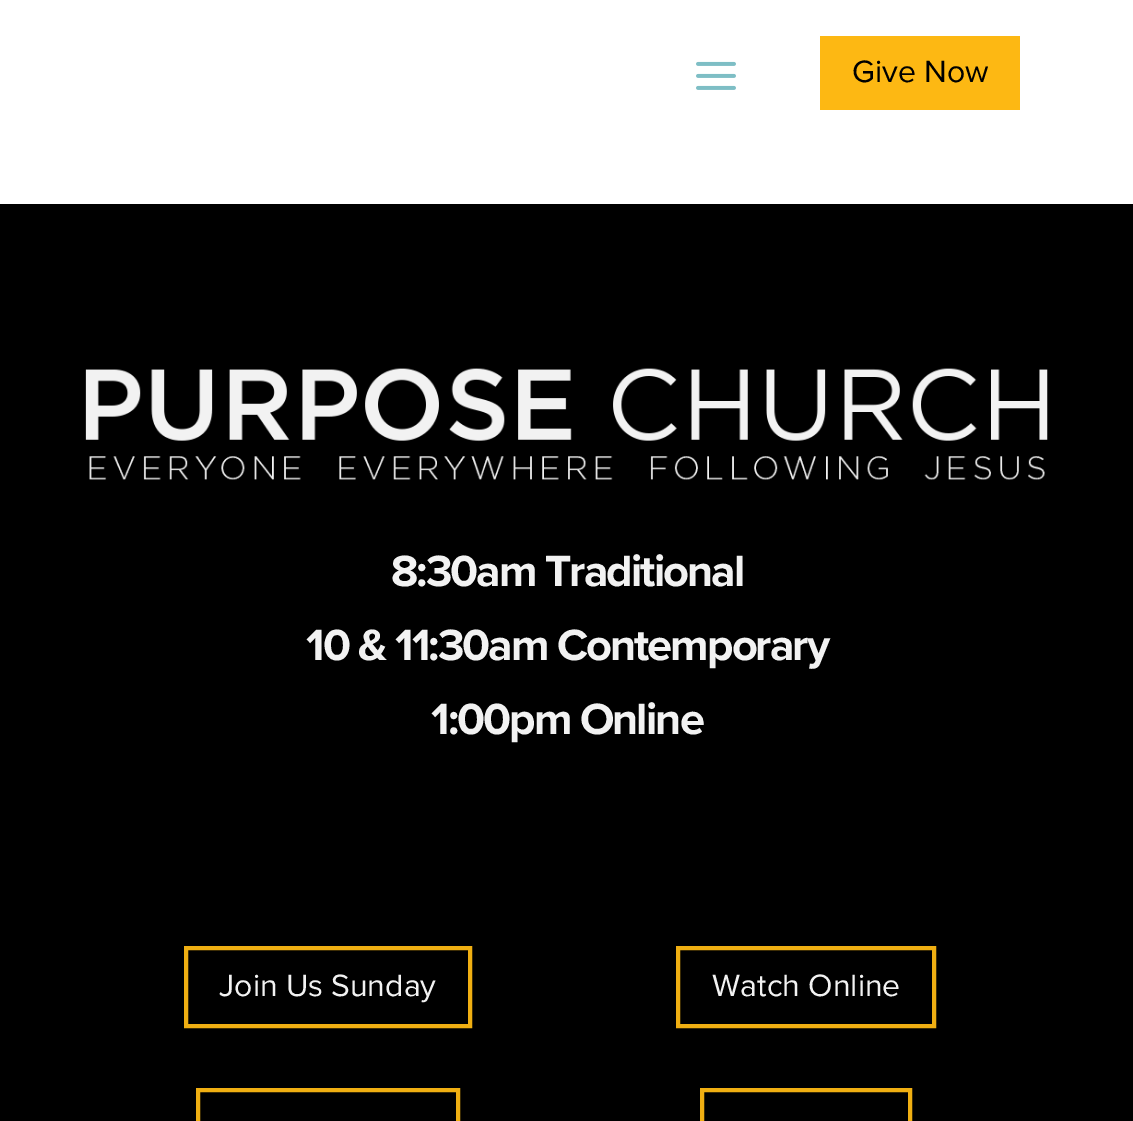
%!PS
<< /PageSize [1133 1121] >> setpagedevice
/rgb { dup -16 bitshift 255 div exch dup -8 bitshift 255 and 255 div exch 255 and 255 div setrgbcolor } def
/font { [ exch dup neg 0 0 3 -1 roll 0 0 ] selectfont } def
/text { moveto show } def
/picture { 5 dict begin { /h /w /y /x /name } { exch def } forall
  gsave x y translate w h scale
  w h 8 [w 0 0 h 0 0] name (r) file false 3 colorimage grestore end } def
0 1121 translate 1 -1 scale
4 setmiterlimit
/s1 { /ProximaNova-Regular 32 font 16#000000 rgb } def
/s2 { /ProximaNova-Regular 32 font 16#F2F2F2 rgb } def
16#FFFFFF rgb
0 0 1133 1121 rectfill
(pic1.raw) 696 61 40 29 picture
16#FDB813 rgb
820 36 200 74 rectfill
s1
(Give Now) 852 82 text
0 204 1133 917 rectfill
(pic2.raw) 85 368 963 112 picture
/ProximaNova-Bold 45.25 font
16#F2F2F2 rgb
391 586 moveto -2 0 (8:30am Traditional) ashow
306 660 moveto -2 0 (10 & 11:30am Contemporary) ashow
431 734 moveto -2 0 (1:00pm Online) ashow
16#F0AF12 rgb
4 setlinewidth
186 948 284 78 rectstroke
s2
(Join Us Sunday) 219 996 text
16#F0AF12 rgb
678 948 256 78 rectstroke
s2
(Watch Online) 712 996 text
16#F0AF12 rgb
198 1090 260 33 rectstroke
702 1090 208 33 rectstroke
showpage
